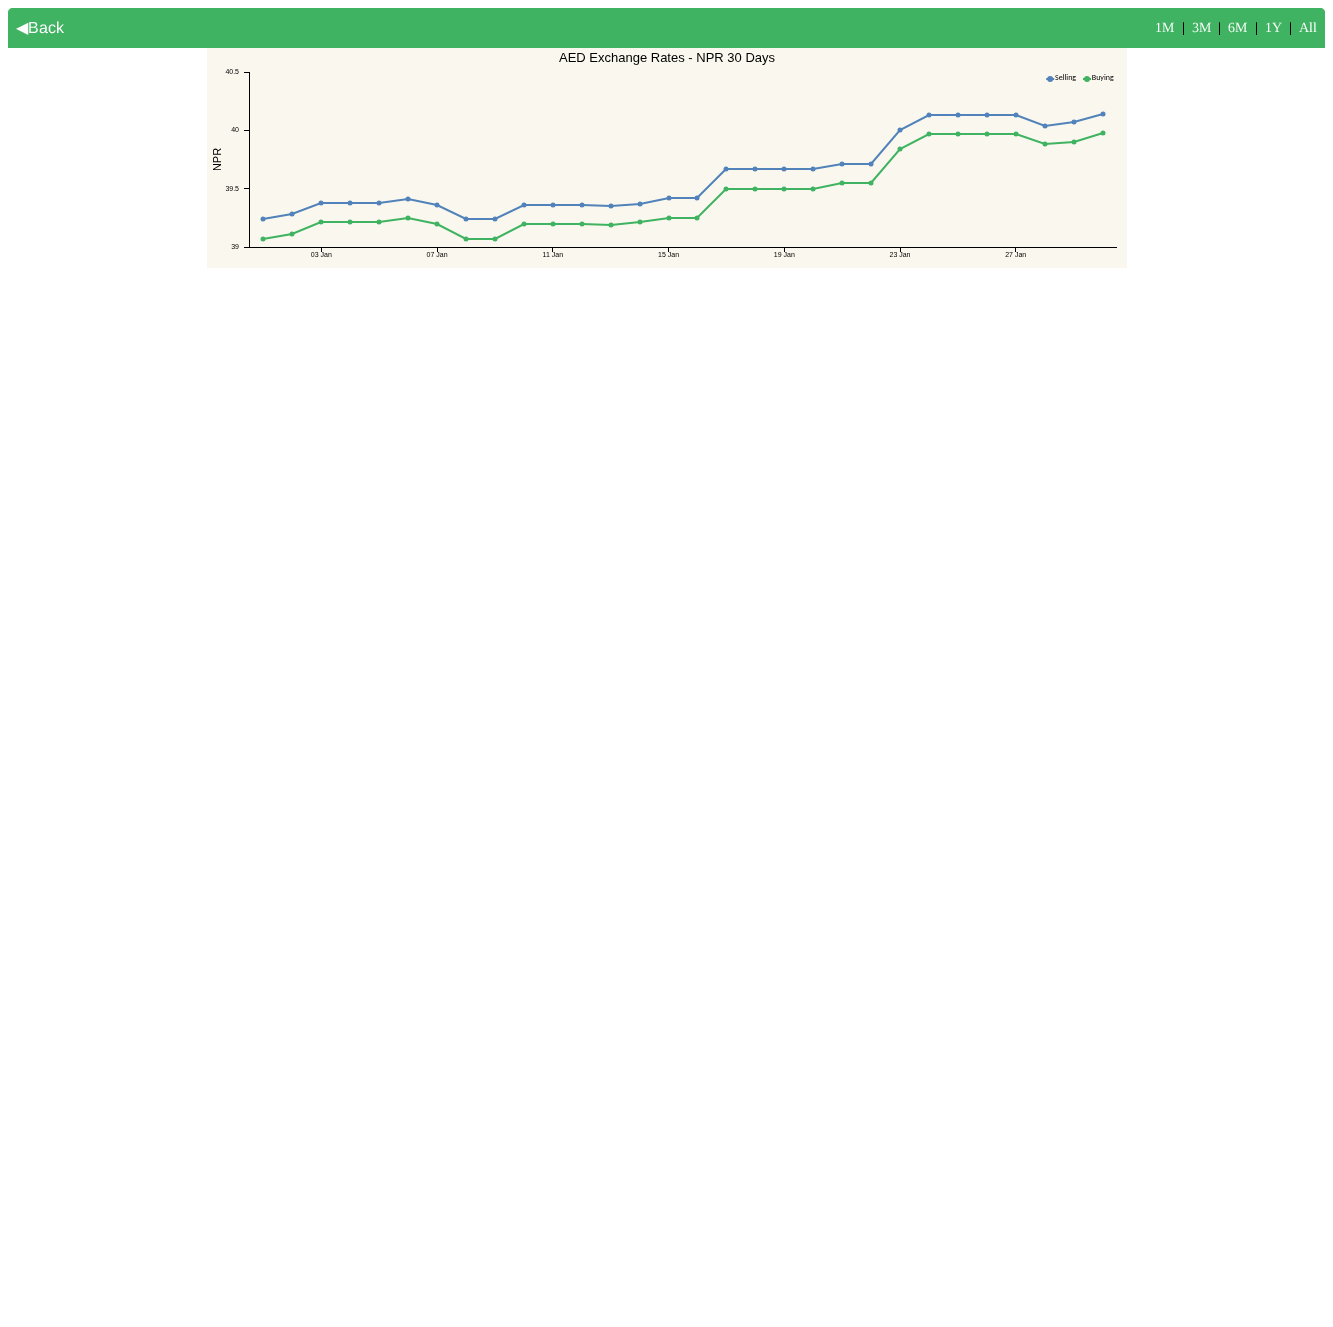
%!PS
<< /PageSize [1333 1327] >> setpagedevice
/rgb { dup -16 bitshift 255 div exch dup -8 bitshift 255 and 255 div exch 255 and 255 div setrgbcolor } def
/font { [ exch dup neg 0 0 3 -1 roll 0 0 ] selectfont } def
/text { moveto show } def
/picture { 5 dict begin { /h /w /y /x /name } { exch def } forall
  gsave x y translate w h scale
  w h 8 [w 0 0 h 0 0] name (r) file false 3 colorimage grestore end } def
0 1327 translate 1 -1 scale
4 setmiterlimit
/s1 { /DejaVuSans-Regular 16 font 16#FFFFFF rgb } def
/s2 { /LiberationSans-Regular 16 font 16#FFFFFF rgb } def
/s3 { /LiberationSerif-Regular 14 font 16#FFFFFF rgb } def
/s4 { /LiberationSerif-Bold 14 font 16#000000 rgb } def
16#FFFFFF rgb
0 0 1333 1327 rectfill
16#3FB361 rgb
13 8 moveto 1320 8 lineto 1323 8 1325 10 1325 13 curveto 1325 48 lineto 8 48 lineto 8 13 lineto 8 10 10 8 13 8 curveto closepath fill
s1
(◀) 16 33 text
s2
(Back) 28 33 text
s3
(1M) 1155 32 text
s4
(|) 1182 32 text
s3
(3M) 1192 32 text
s4
(|) 1218 32 text
s3
(6M) 1228 32 text
s4
(|) 1255 32 text
s3
(1Y) 1265 32 text
s4
(|) 1289 32 text
s3
(All) 1299 32 text
(pic1.raw) 207 48 920 220 picture
showpage
